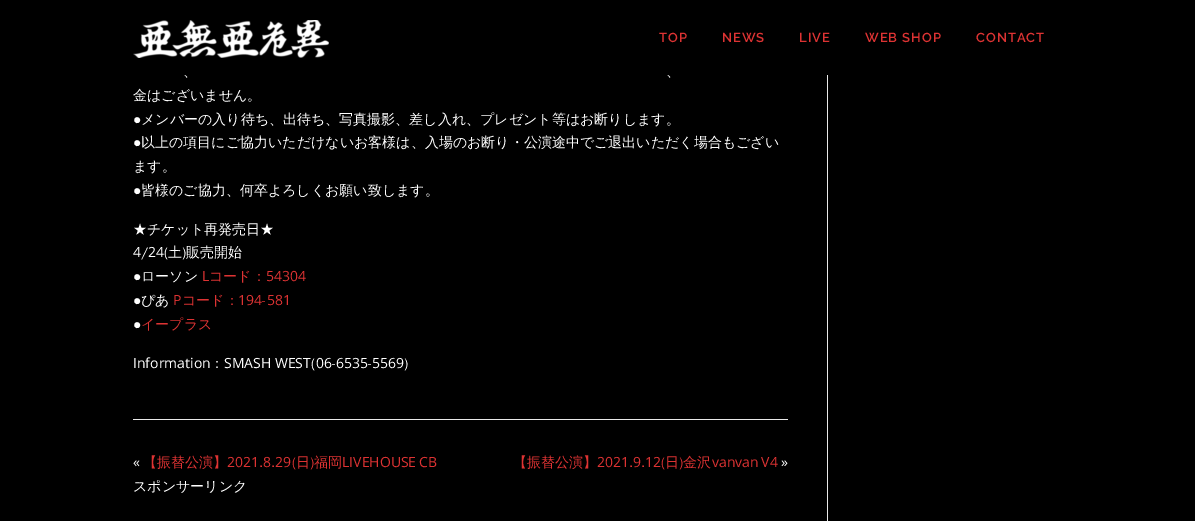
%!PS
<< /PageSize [1195 521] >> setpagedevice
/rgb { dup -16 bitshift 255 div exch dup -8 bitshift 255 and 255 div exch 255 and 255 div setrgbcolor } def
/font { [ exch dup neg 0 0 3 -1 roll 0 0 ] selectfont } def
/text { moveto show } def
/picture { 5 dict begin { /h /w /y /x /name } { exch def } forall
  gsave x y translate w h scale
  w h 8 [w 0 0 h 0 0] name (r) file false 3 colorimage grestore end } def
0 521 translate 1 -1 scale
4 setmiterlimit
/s1 { /WenQuanYiZenHei-Medium 14 font 16#FFFFFF rgb } def
/s2 { /LiberationSans-Regular 14 font 16#FFFFFF rgb } def
/s3 { /OpenSans-Regular 14 font 16#FFFFFF rgb } def
/s4 { /OpenSans-Regular 14 font 16#DD3333 rgb } def
/s5 { /WenQuanYiZenHei-Medium 14 font 16#DD3333 rgb } def
16#000000 rgb
0 0 1195 521 rectfill
s1
(、) 183 76 text
(、) 666 76 text
16#000000 rgb
184 74 484 1 rectfill
(pic1.raw) 133 20 196 38 picture
/Raleway-SemiBold 13 font
16#DD3333 rgb
659 42 moveto 1 0 (TOP) ashow
722 42 moveto 1 0 (NEWS) ashow
799 42 moveto 1 0 (LIVE) ashow
865 42 moveto 1 0 (WEB SHOP) ashow
976 42 moveto 1 0 (CONTACT) ashow
16#E9E9E9 rgb
827 75 1 446 rectfill
s1
(金はございません。) 133 100 text
s2
(●) 133 124 text
s1
(メンバーの入り待ち、出待ち、写真撮影、差し入れ、プレゼント等はお断りします。) 141 124 text
s2
(●) 133 147 text
s1
(以上の項目にご協力いただけないお客様は、入場のお断り・公演途中でご退出いただく場合もござい) 141 147 text
(ます。) 133 171 text
s2
(●) 133 195 text
s1
(皆様のご協力、何卒よろしくお願い致します。) 141 195 text
(★チケット再発売日★) 133 234 text
s3
(4) 133 257 text
s1
(/) 141 257 text
s3
(24) 148 257 text
s1
(\(土\)販売開始) 164 257 text
s2
(●) 133 281 text
s1
(ローソン) 141 281 text
s4
(L) 202 281 text
s5
(コード：) 209 281 text
s4
(54304) 266 281 text
s2
(●) 133 305 text
s1
(ぴあ) 141 305 text
s4
(P) 173 305 text
s5
(コード：) 182 305 text
s4
(194) 238 305 text
s5
(-) 262 305 text
s4
(581) 267 305 text
s2
(●) 133 329 text
s5
(イープラス) 141 329 text
s3
(Information) 133 368 text
s1
(：) 210 368 text
s3
(SMASH WEST) 224 368 text
s1
(\() 311 368 text
s3
(06) 316 368 text
s1
(-) 332 368 text
s3
(6535) 336 368 text
s1
(-) 368 368 text
s3
(5569) 372 368 text
s1
(\)) 404 368 text
16#E9E9E9 rgb
133 419 655 1 rectfill
s3
(«) 133 467 text
s5
(【振替公演】) 143 467 text
s4
(2021) 227 467 text
s5
(.) 259 467 text
s4
(8) 263 467 text
s5
(.) 271 467 text
s4
(29) 275 467 text
s5
(\(日\)福岡) 292 467 text
/OpenSans-Regular 14 font
342 467 moveto -1 0 32 (LIVEHOUSE CB) widthshow
s5
(【振替公演】) 513 467 text
s4
(2021) 597 467 text
s5
(.) 629 467 text
s4
(9) 633 467 text
s5
(.) 641 467 text
s4
(12) 645 467 text
s5
(\(日\)金沢) 661 467 text
/OpenSans-Regular 14 font
712 467 moveto -1 0 32 (vanvan V4) widthshow
s3
(») 781 467 text
s1
(スポンサーリンク) 133 491 text
showpage
